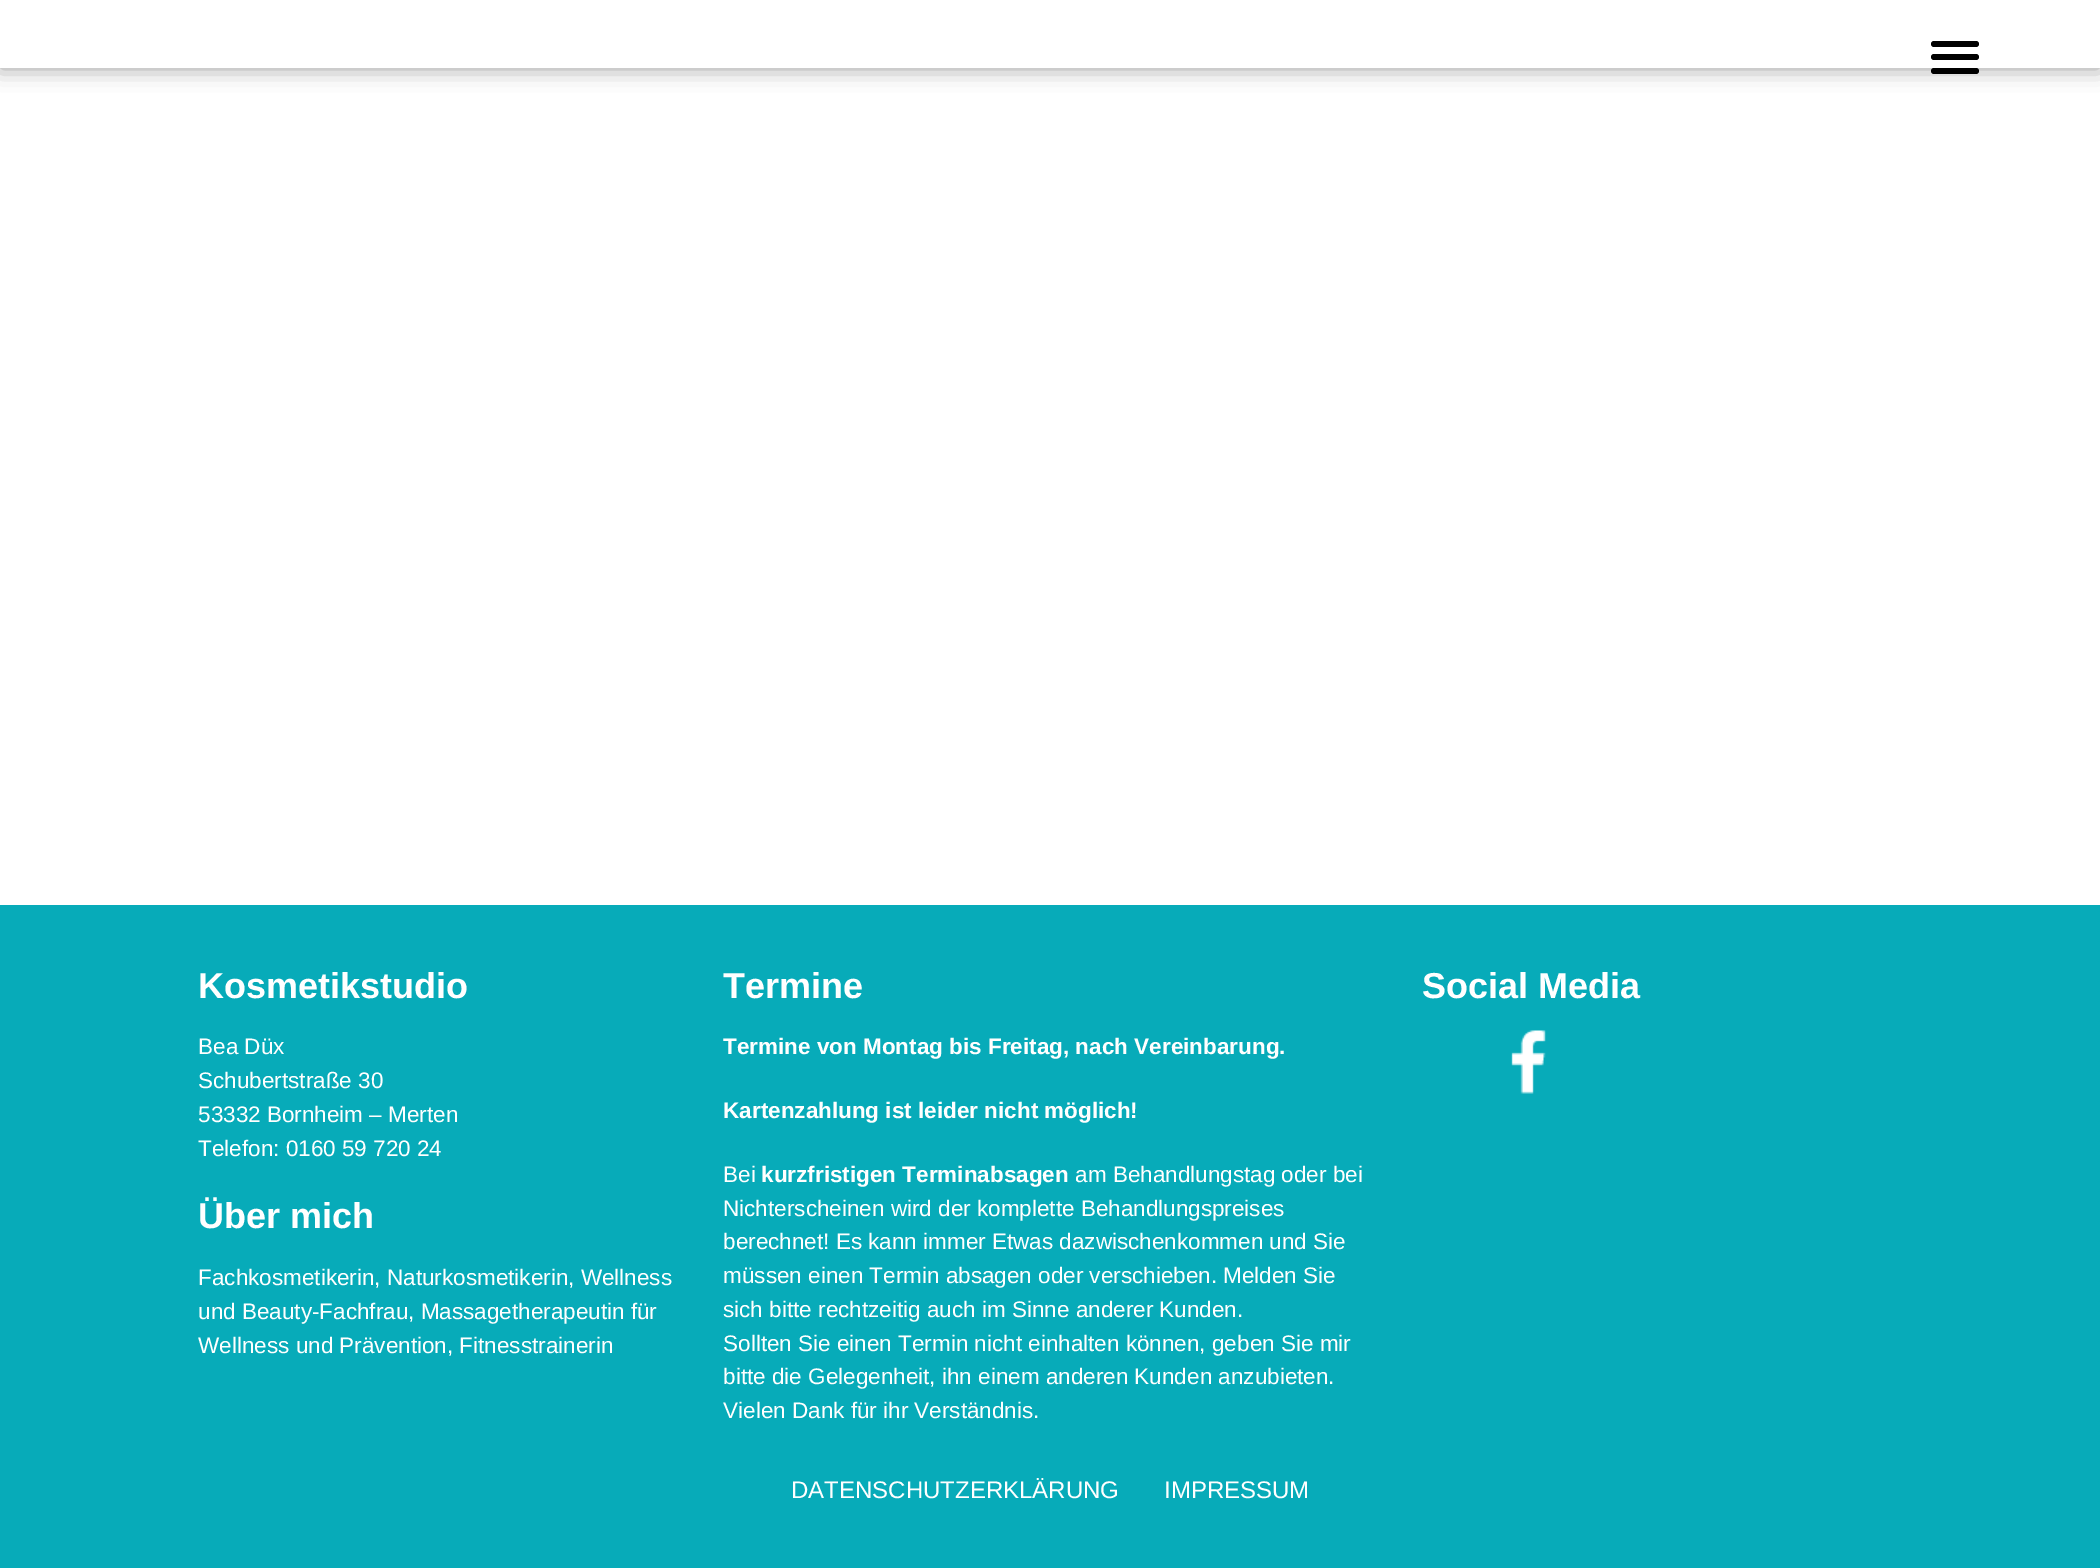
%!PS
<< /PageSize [2100 1568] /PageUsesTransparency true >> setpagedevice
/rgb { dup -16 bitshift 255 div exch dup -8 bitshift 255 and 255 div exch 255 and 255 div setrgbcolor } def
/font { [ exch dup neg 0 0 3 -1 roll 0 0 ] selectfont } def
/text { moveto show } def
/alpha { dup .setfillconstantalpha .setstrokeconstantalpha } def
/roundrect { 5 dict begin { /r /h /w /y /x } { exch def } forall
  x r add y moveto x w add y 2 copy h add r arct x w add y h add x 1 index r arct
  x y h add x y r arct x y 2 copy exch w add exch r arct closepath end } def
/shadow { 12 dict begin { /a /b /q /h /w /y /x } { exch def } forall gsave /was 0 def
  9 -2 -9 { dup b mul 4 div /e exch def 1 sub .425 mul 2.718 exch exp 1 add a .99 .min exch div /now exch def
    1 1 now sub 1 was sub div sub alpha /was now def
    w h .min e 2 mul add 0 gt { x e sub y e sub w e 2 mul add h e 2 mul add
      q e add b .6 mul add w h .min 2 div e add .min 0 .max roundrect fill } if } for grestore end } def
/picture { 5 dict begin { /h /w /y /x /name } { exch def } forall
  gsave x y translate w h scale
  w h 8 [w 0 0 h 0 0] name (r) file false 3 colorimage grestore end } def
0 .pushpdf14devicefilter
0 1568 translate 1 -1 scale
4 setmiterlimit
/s1 { /LiberationSans-Bold 36 font 16#FFFFFF rgb } def
/s2 { /LiberationSans-Regular 22.5 font 16#FFFFFF rgb } def
/s3 { /LiberationSans-Bold 22.5 font 16#FFFFFF rgb } def
/s4 { /LiberationSans-Regular 24 font 16#FFFFFF rgb } def
16#FFFFFF rgb
0 0 2100 1568 rectfill
16#000000 rgb
0 0 2100 68 0 11 0.4 shadow
16#FFFFFF rgb
0 0 2100 68 rectfill
16#000000 rgb
1931 41 48 6 3 roundrect fill
1931 54 48 6 3 roundrect fill
1931 68 48 6 3 roundrect fill
16#07ABB9 rgb
0 905 2100 663 rectfill
s1
(Kosmetikstudio) 198 998 text
s2
(Bea Düx) 198 1054 text
(Schubertstraße 30) 198 1088 text
(53332 Bornheim – Merten) 198 1122 text
(Telefon: 0160 59 720 24) 198 1156 text
s1
(Über mich) 198 1228 text
s2
(Fachkosmetikerin, Naturkosmetikerin, Wellness) 198 1285 text
(und Beauty-Fachfrau, Massagetherapeutin für) 198 1319 text
(Wellness und Prävention, Fitnesstrainerin) 198 1353 text
s1
(Termine) 723 998 text
s3
(Termine von Montag bis Freitag, nach Vereinbarung.) 723 1054 text
(Kartenzahlung ist leider nicht möglich!) 723 1118 text
s2
(Bei) 723 1182 text
s3
(kurzfristigen Terminabsagen) 761 1182 text
s2
(am Behandlungstag oder bei) 1075 1182 text
(Nichterscheinen wird der komplette Behandlungspreises) 723 1216 text
(berechnet! Es kann immer Etwas dazwischenkommen und Sie) 723 1249 text
(müssen einen Termin absagen oder verschieben. Melden Sie) 723 1283 text
(sich bitte rechtzeitig auch im Sinne anderer Kunden.) 723 1317 text
(Sollten Sie einen Termin nicht einhalten können, geben Sie mir) 723 1351 text
(bitte die Gelegenheit, ihn einem anderen Kunden anzubieten.) 723 1384 text
(Vielen Dank für ihr Verständnis.) 723 1418 text
s1
(Social Media) 1422 998 text
(pic1.raw) 1511 1030 35 64 picture
s4
(DATENSCHUTZERKLÄRUNG) 791 1498 text
(IMPRESSUM) 1164 1498 text
.poppdf14devicefilter showpage
